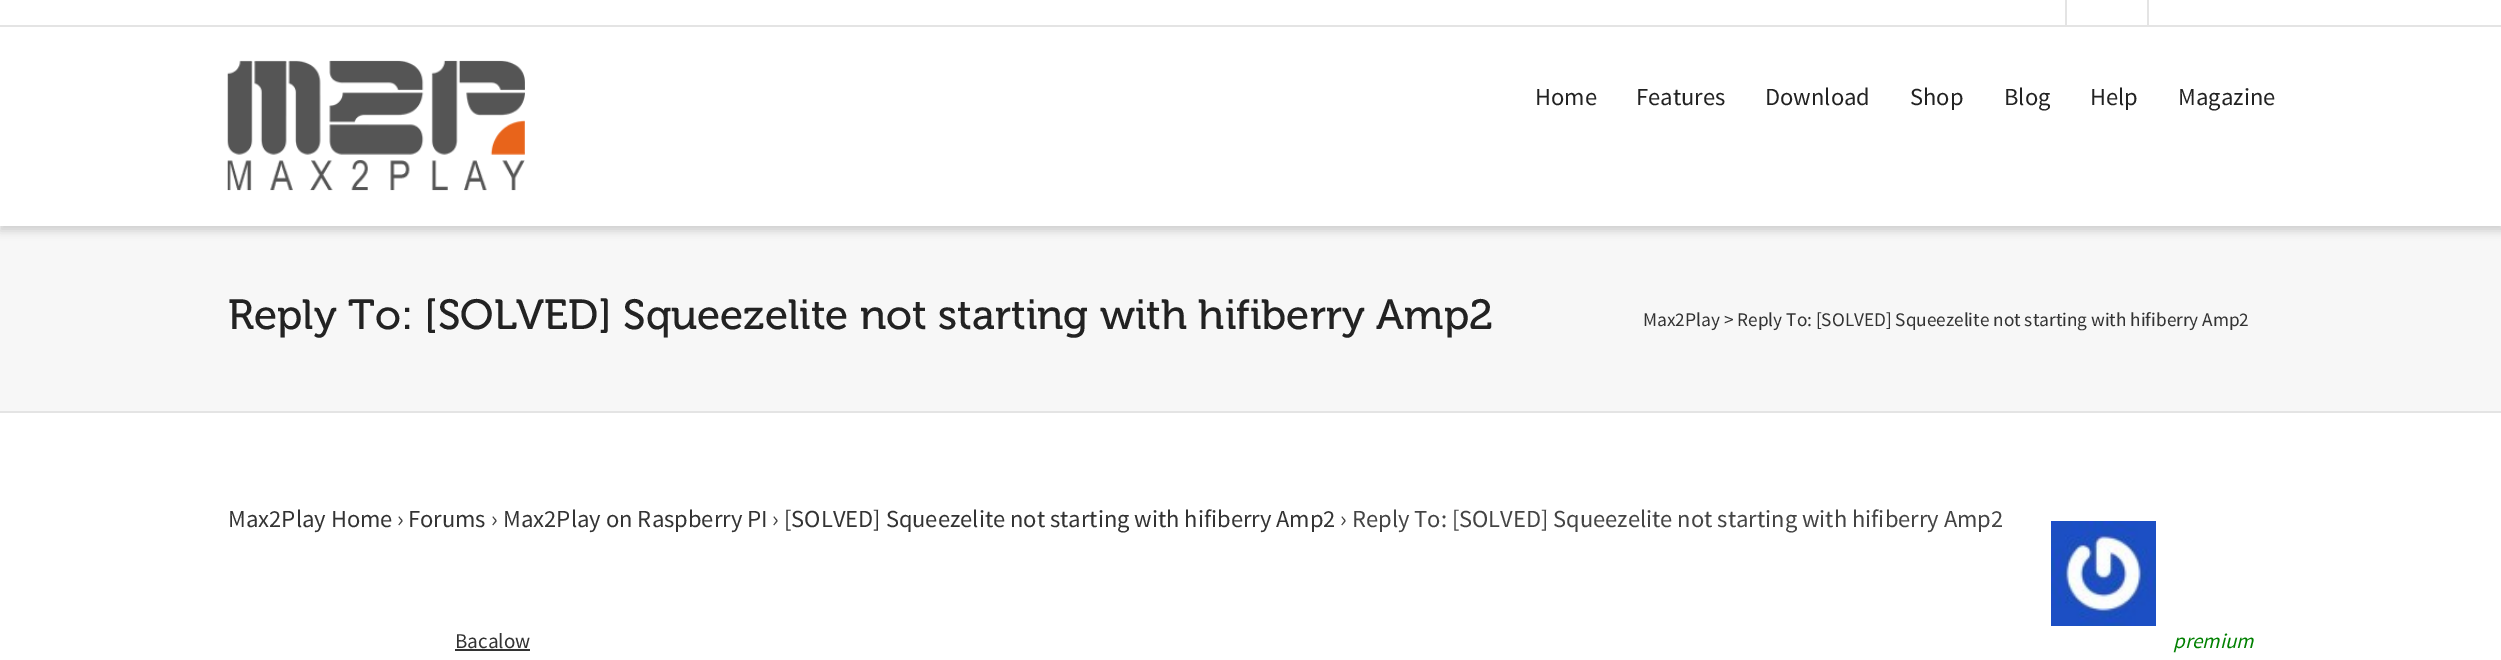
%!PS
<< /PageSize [2501 660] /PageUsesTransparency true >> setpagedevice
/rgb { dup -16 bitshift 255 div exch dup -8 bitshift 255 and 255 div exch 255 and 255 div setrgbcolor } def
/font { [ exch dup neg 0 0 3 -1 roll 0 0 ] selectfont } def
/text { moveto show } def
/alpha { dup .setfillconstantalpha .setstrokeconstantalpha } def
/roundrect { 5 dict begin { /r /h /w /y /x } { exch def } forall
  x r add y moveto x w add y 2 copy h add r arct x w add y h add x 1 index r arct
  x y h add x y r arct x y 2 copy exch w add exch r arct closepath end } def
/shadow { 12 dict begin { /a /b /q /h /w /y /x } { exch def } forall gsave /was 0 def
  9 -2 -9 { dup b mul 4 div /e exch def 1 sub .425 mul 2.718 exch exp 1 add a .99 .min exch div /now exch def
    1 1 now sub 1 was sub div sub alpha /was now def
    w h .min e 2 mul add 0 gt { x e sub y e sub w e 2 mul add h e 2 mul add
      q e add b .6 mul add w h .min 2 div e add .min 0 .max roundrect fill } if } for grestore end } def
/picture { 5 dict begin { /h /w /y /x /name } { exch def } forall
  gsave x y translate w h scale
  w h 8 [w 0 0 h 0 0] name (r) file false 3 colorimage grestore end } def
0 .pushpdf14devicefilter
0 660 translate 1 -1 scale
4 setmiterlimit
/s1 { /SourceSansPro-Regular 24.5 font 16#222222 rgb } def
/s2 { /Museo-Regular 42 font 16#222222 rgb } def
/s3 { /SourceSansPro-Regular 19.25 font 16#333333 rgb } def
/s4 { /SourceSansPro-Regular 24.5 font 16#333333 rgb } def
/s5 { /SourceSansPro-Regular 24.5 font 16#444444 rgb } def
/s6 { /SourceSansPro-Regular 21 font 16#333333 rgb } def
/s7 { /SourceSansPro-Italic 21 font 16#008000 rgb } def
16#FFFFFF rgb
0 0 2501 660 rectfill
16#F7F7F7 rgb
0 226 2501 185 rectfill
16#000000 rgb
0 -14 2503 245 0 4.5 0.1 shadow
0 -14 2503 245 0 4.5 0.05 shadow
16#FFFFFF rgb
0 0 2501 226 rectfill
16#E4E4E4 rgb
0 25 2501 2 rectfill
2065 0 2 25 rectfill
2147 0 2 25 rectfill
(pic1.raw) 227 60 298 131 picture
s1
(Home) 1535 105 text
(Features) 1636 105 text
(Download) 1765 105 text
(Shop) 1910 105 text
(Blog) 2004 105 text
(Help) 2090 105 text
(Magazine) 2178 105 text
16#E4E4E4 rgb
0 411 2501 2 rectfill
s2
(Reply To: [SOLVED] Squeezelite not starting with hifiberry Amp2) 228 329 text
s3
(Max2Play > Reply To: [SOLVED] Squeezelite not starting with hifiberry Amp2) 1643 326 text
s4
(Max2Play Home) 228 527 text
s5
(›) 397 527 text
s4
(Forums) 408 527 text
s5
(›) 491 527 text
s4
(Max2Play on Raspberry PI) 503 527 text
s5
(›) 772 527 text
s4
([SOLVED] Squeezelite not starting with hifiberry Amp2) 784 527 text
s5
(› Reply To: [SOLVED] Squeezelite not starting with hifiberry Amp2) 1340 527 text
(pic2.raw) 2051 521 105 105 picture
s6
(Bacalow) 455 648 text
455 649 75 2 rectfill
s7
(premium) 2173 648 text
.poppdf14devicefilter showpage
